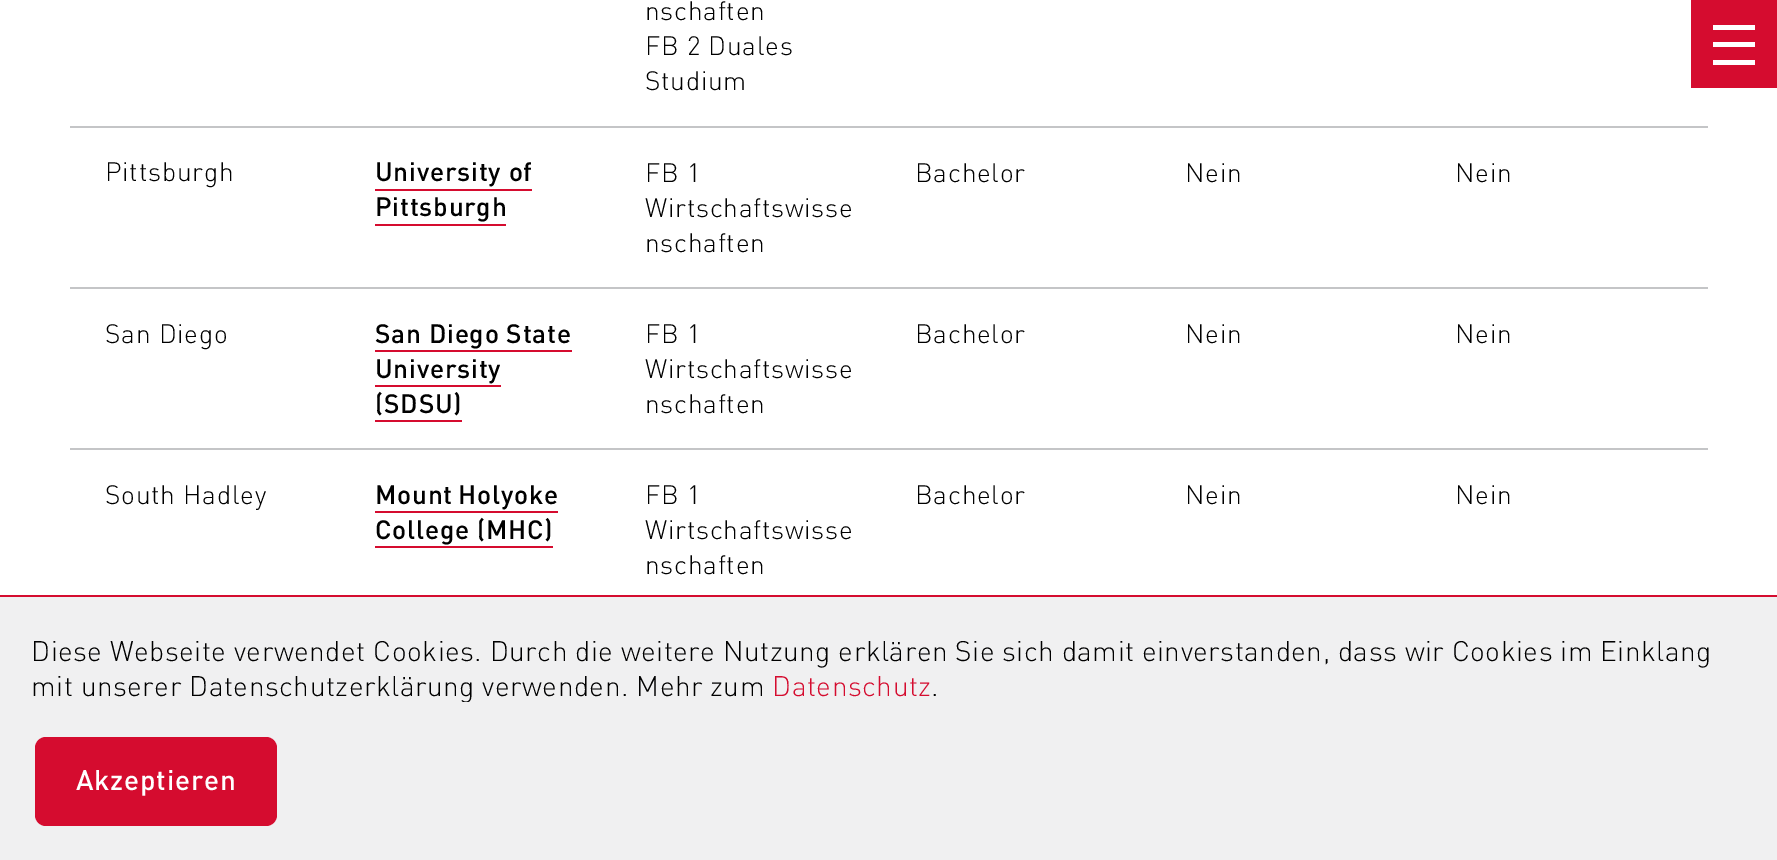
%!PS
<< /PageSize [1777 860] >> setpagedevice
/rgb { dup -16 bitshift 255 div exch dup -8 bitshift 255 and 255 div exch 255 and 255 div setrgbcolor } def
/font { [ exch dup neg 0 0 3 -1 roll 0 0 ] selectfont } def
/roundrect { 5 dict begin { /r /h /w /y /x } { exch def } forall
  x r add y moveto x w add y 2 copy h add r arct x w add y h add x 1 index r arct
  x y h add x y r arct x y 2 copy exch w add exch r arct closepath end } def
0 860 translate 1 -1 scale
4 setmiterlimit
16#FFFFFF rgb
0 0 1777 860 rectfill
16#C4C5C7 rgb
70 126 1638 2 rectfill
/DIN-Light 26.25 font
16#000000 rgb
645 20 moveto 0.75 0 (nschaften) ashow
645 55 moveto 0.75 0 (FB 2 Duales) ashow
645 90 moveto 0.75 0 (Studium) ashow
16#C4C5C7 rgb
70 287 1638 2 rectfill
16#000000 rgb
105 181 moveto 0.75 0 (Pittsburgh) ashow
/DIN-Medium 26.25 font
375 181 moveto 0.75 0 (University of) ashow
16#D50C2F rgb
375 189 157 2 rectfill
16#000000 rgb
375 216 moveto 0.75 0 (Pittsburgh) ashow
16#D50C2F rgb
375 224 131 2 rectfill
/DIN-Light 26.25 font
16#000000 rgb
645 182 moveto 0.75 0 (FB 1) ashow
645 217 moveto 0.75 0 (Wirtschaftswisse) ashow
645 252 moveto 0.75 0 (nschaften) ashow
915 182 moveto 0.75 0 (Bachelor) ashow
1185 182 moveto 0.75 0 (Nein) ashow
1455 182 moveto 0.75 0 (Nein) ashow
16#C4C5C7 rgb
70 448 1638 2 rectfill
16#000000 rgb
105 343 moveto 0.75 0 (San Diego) ashow
/DIN-Medium 26.25 font
375 343 moveto 0.75 0 (San Diego State) ashow
16#D50C2F rgb
375 350 197 2 rectfill
16#000000 rgb
375 378 moveto 0.75 0 (University) ashow
16#D50C2F rgb
375 385 126 2 rectfill
16#000000 rgb
375 413 moveto 0.75 0 (\(SDSU\)) ashow
16#D50C2F rgb
375 420 87 2 rectfill
/DIN-Light 26.25 font
16#000000 rgb
645 343 moveto 0.75 0 (FB 1) ashow
645 378 moveto 0.75 0 (Wirtschaftswisse) ashow
645 413 moveto 0.75 0 (nschaften) ashow
915 343 moveto 0.75 0 (Bachelor) ashow
1185 343 moveto 0.75 0 (Nein) ashow
1455 343 moveto 0.75 0 (Nein) ashow
105 504 moveto 0.75 0 (South Hadley) ashow
/DIN-Medium 26.25 font
375 504 moveto -2 0 32 0.75 0 (Mount Holyoke) awidthshow
16#D50C2F rgb
375 511 183 2 rectfill
16#000000 rgb
375 539 moveto 0.75 0 (College \(MHC\)) ashow
16#D50C2F rgb
375 546 178 2 rectfill
/DIN-Light 26.25 font
16#000000 rgb
645 504 moveto 0.75 0 (FB 1) ashow
645 539 moveto 0.75 0 (Wirtschaftswisse) ashow
645 574 moveto 0.75 0 (nschaften) ashow
915 504 moveto 0.75 0 (Bachelor) ashow
1185 504 moveto 0.75 0 (Nein) ashow
1455 504 moveto 0.75 0 (Nein) ashow
16#F0F0F1 rgb
0 597 1777 263 rectfill
16#D50C2F rgb
0 595 1777 2 rectfill
/DIN-Light 28 font
16#000000 rgb
31 661 moveto -0.4 0 32 0.53 0 (Diese Webseite verwendet Cookies. Durch die weitere Nutzung erklären Sie sich damit einverstanden, dass wir Cookies im Einklang) awidthshow
31 696 moveto -0.25 0 32 0.53 0 (mit unserer Datenschutzerklärung verwenden. Mehr zum) awidthshow
16#D50C2F rgb
772 696 moveto 0.53 0 (Datenschutz) ashow
16#000000 rgb
931 696 moveto 0.53 0 (.) ashow
16#F0F0F1 rgb
463 702 6 1 rectfill
16#D50C2F rgb
35 737 242 89 11 roundrect fill
/DIN-Medium 28 font
16#FFFFFF rgb
76 790 moveto 0.75 0 (Akzeptieren) ashow
16#D50C2F rgb
1691 0 86 88 rectfill
16#FFFFFF rgb
1713 42 42 5 rectfill
1713 25 42 5 rectfill
1713 60 42 5 rectfill
showpage
